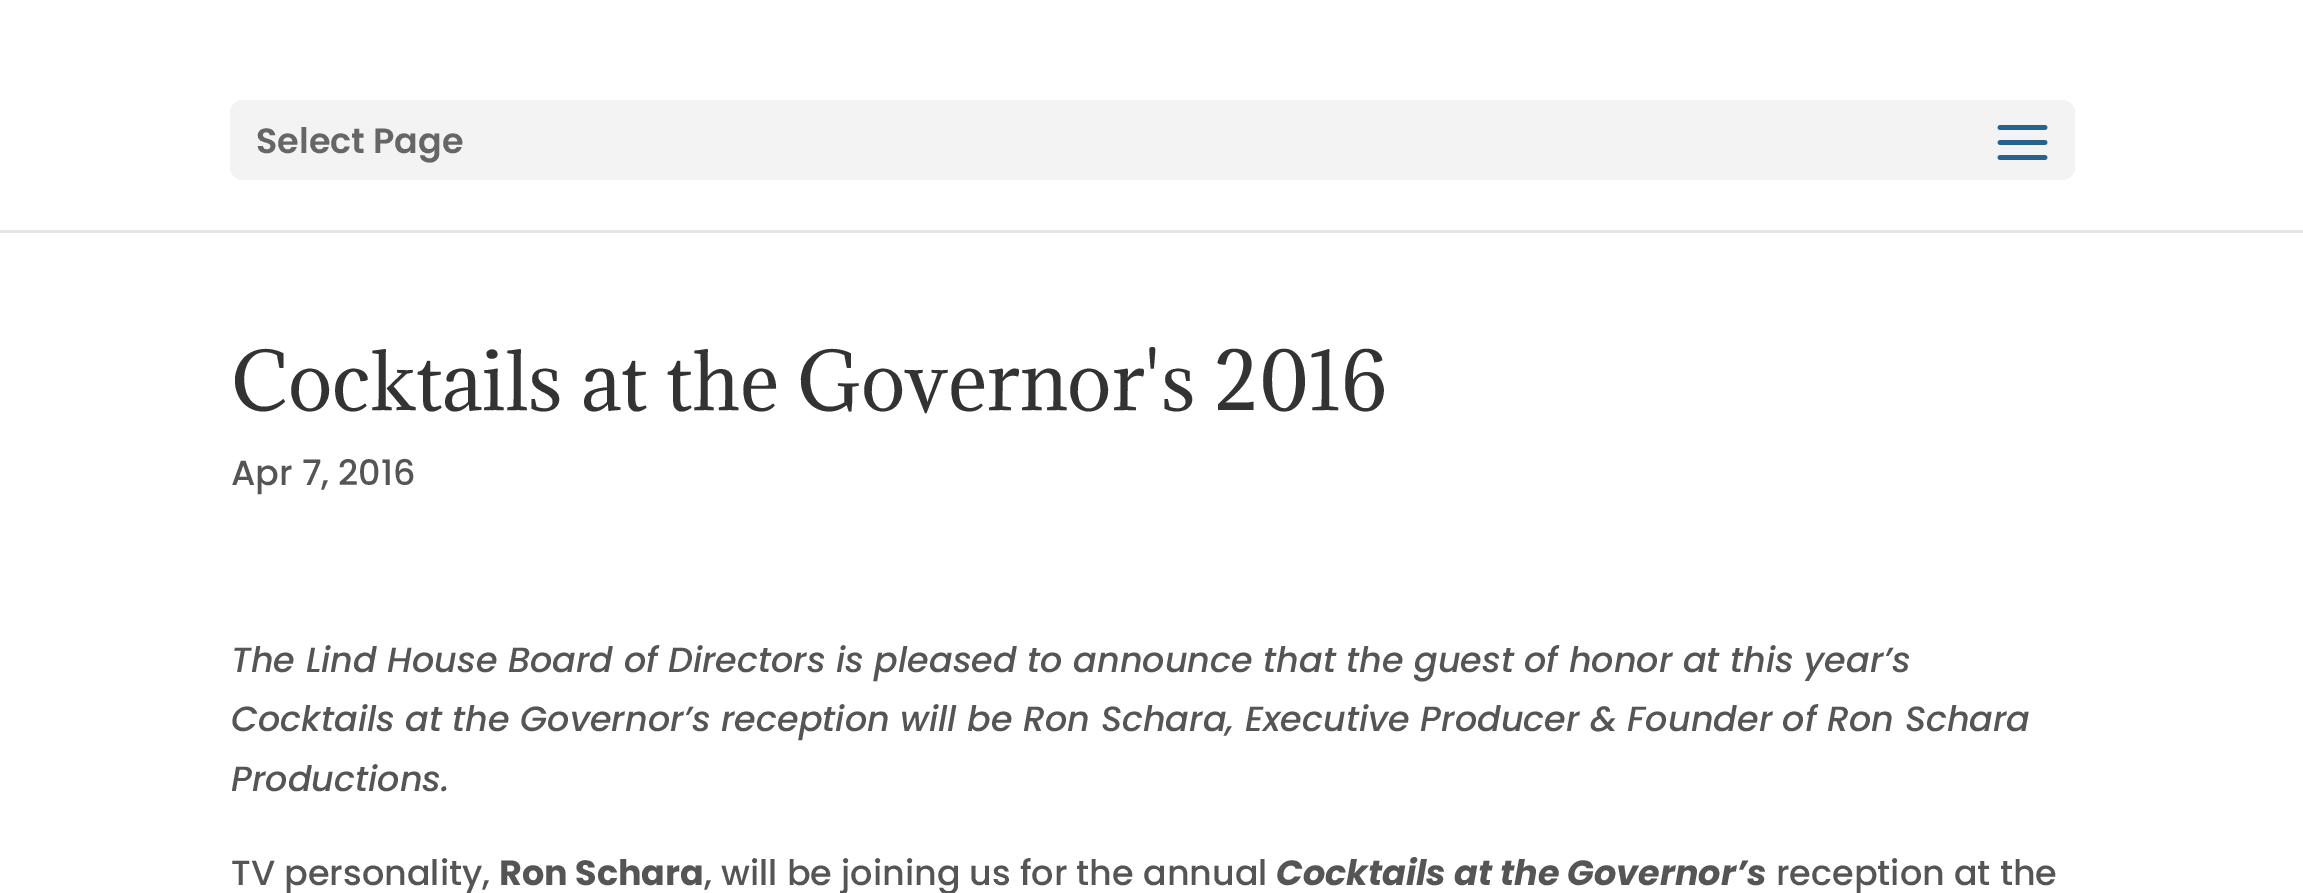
%!PS
<< /PageSize [2303 893] >> setpagedevice
/rgb { dup -16 bitshift 255 div exch dup -8 bitshift 255 and 255 div exch 255 and 255 div setrgbcolor } def
/font { [ exch dup neg 0 0 3 -1 roll 0 0 ] selectfont } def
/text { moveto show } def
/roundrect { 5 dict begin { /r /h /w /y /x } { exch def } forall
  x r add y moveto x w add y 2 copy h add r arct x w add y h add x 1 index r arct
  x y h add x y r arct x y 2 copy exch w add exch r arct closepath end } def
/picture { 5 dict begin { /h /w /y /x /name } { exch def } forall
  gsave x y translate w h scale
  w h 8 [w 0 0 h 0 0] name (r) file false 3 colorimage grestore end } def
0 893 translate 1 -1 scale
4 setmiterlimit
/s1 { /Poppins-SemiBold 35 font 16#666666 rgb } def
/s2 { /Adamina-Regular 75 font 16#333333 rgb } def
/s3 { /Poppins-Medium 35 font 16#555555 rgb } def
/s4 { /Poppins-MediumItalic 35 font 16#555555 rgb } def
/s5 { /Poppins-Bold 35 font 16#555555 rgb } def
/s6 { /Poppins-BoldItalic 35 font 16#555555 rgb } def
16#FFFFFF rgb
0 0 2303 893 rectfill
16#E6E6E6 rgb
0 230 2303 3 rectfill
16#F3F3F3 rgb
230 100 1845 80 13 roundrect fill
s1
(Select Page) 256 153 text
(pic1.raw) 1997 125 51 35 picture
s2
(Cocktails at the Governor's 2016) 231 410 text
s3
(Apr 7, 2016) 231 485 text
s4
(The Lind House Board of Directors is pleased to announce that the guest of honor at this year’s) 231 672 text
(Cocktails at the Governor’s reception will be Ron Schara, Executive Producer & Founder of Ron Schara) 231 731 text
(Productions.) 231 791 text
s3
(TV personality,) 231 885 text
s5
(Ron Schara) 499 885 text
s3
(, will be joining us for the annual) 704 885 text
s6
(Cocktails at the Governor’s) 1276 885 text
s3
(reception at the) 1776 885 text
showpage
